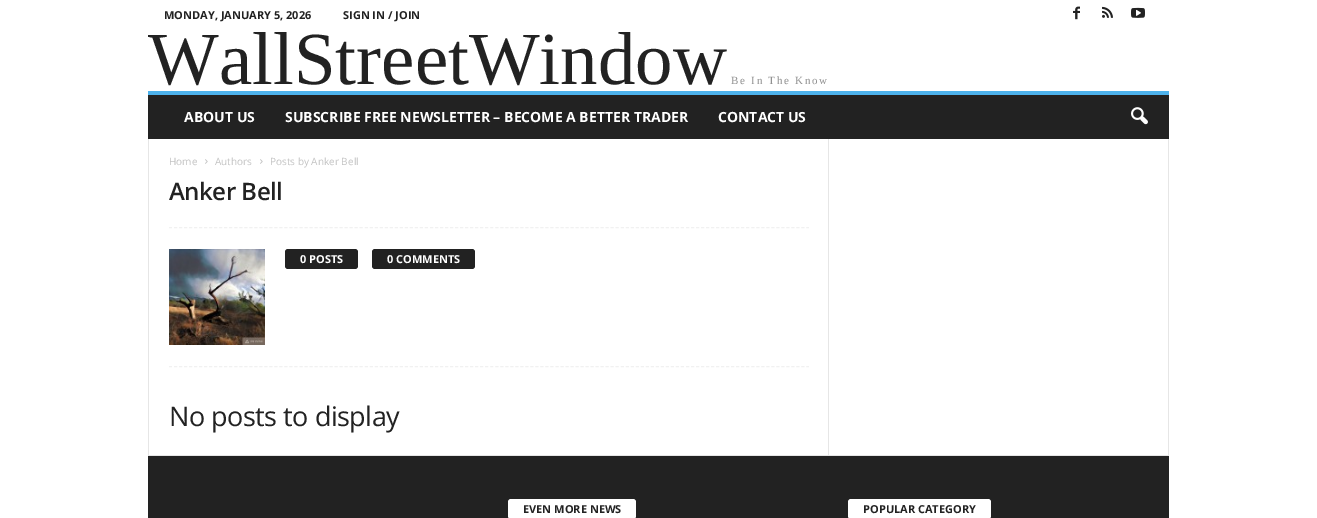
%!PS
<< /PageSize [1317 518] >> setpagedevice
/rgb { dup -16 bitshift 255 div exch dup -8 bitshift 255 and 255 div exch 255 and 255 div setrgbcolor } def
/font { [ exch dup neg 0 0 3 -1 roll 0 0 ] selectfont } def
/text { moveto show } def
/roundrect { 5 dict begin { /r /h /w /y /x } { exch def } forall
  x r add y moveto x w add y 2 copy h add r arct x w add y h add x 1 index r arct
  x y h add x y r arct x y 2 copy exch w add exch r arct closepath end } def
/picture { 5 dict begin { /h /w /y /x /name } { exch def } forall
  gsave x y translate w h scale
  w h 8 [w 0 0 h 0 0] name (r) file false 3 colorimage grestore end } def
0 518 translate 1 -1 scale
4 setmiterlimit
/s1 { /OpenSans-Bold 11 font 16#222222 rgb } def
/s2 { /LiberationSerif-Regular 75 font 16#222222 rgb } def
/s3 { /OpenSans-Bold 14 font 16#FFFFFF rgb } def
/s4 { /OpenSans-Regular 10 font 16#C3C3C3 rgb } def
/s5 { /OpenSans-Bold 11 font 16#FFFFFF rgb } def
16#FFFFFF rgb
0 0 1317 518 rectfill
s1
(MONDAY, JANUARY 5, 2026) 164 19 text
(SIGN IN / JOIN) 343 19 text
(pic1.raw) 1073 6 7 14 picture
(pic2.raw) 1102 6 11 12 picture
(pic3.raw) 1131 7 14 11 picture
s2
(WallStreetWindow) 148 84 text
/LiberationSerif-Regular 11 font
16#919191 rgb
731 84 moveto 1.75 0 (Be In The Know) ashow
16#222222 rgb
148 95 1021 44 rectfill
16#4DB2EC rgb
148 91 1021 4 rectfill
s3
(ABOUT US) 184 122 text
(SUBSCRIBE FREE NEWSLETTER – BECOME A BETTER TRADER) 285 122 text
(CONTACT US) 718 122 text
(pic4.raw) 1131 107 17 18 picture
16#E6E6E6 rgb
148 455 1021 1 rectfill
148 139 1 316 rectfill
s4
(Home) 169 165 text
(pic5.raw) 205 159 3 5 picture
(Authors) 215 165 text
(pic5.raw) 260 159 3 5 picture
(Posts by Anker Bell) 270 165 text
/OpenSans-SemiBold 24 font
16#222222 rgb
169 200 moveto -0.5 0 (Anker Bell) ashow
16#F1F1F1 rgb
[3 2.02] 0 setdash
169 227.5 moveto 809 227.5 lineto stroke
169 366.5 moveto 809 366.5 lineto stroke
(pic6.raw) 169 249 96 96 picture
16#222222 rgb
285 249 73 20 3 roundrect fill
s5
(0 POSTS) 300 263 text
16#222222 rgb
372 249 103 20 3 roundrect fill
s5
(0 COMMENTS) 387 263 text
/OpenSans-Regular 27 font
16#222222 rgb
169 426 moveto -0.5 0 (No posts to display) ashow
16#E6E6E6 rgb
828 139 1 316 rectfill
1168 139 1 316 rectfill
16#222222 rgb
148 456 1021 62 rectfill
16#FFFFFF rgb
508 499 128 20 3 roundrect fill
s1
(EVEN MORE NEWS) 523 513 text
16#FFFFFF rgb
848 499 143 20 3 roundrect fill
s1
(POPULAR CATEGORY) 863 513 text
showpage
